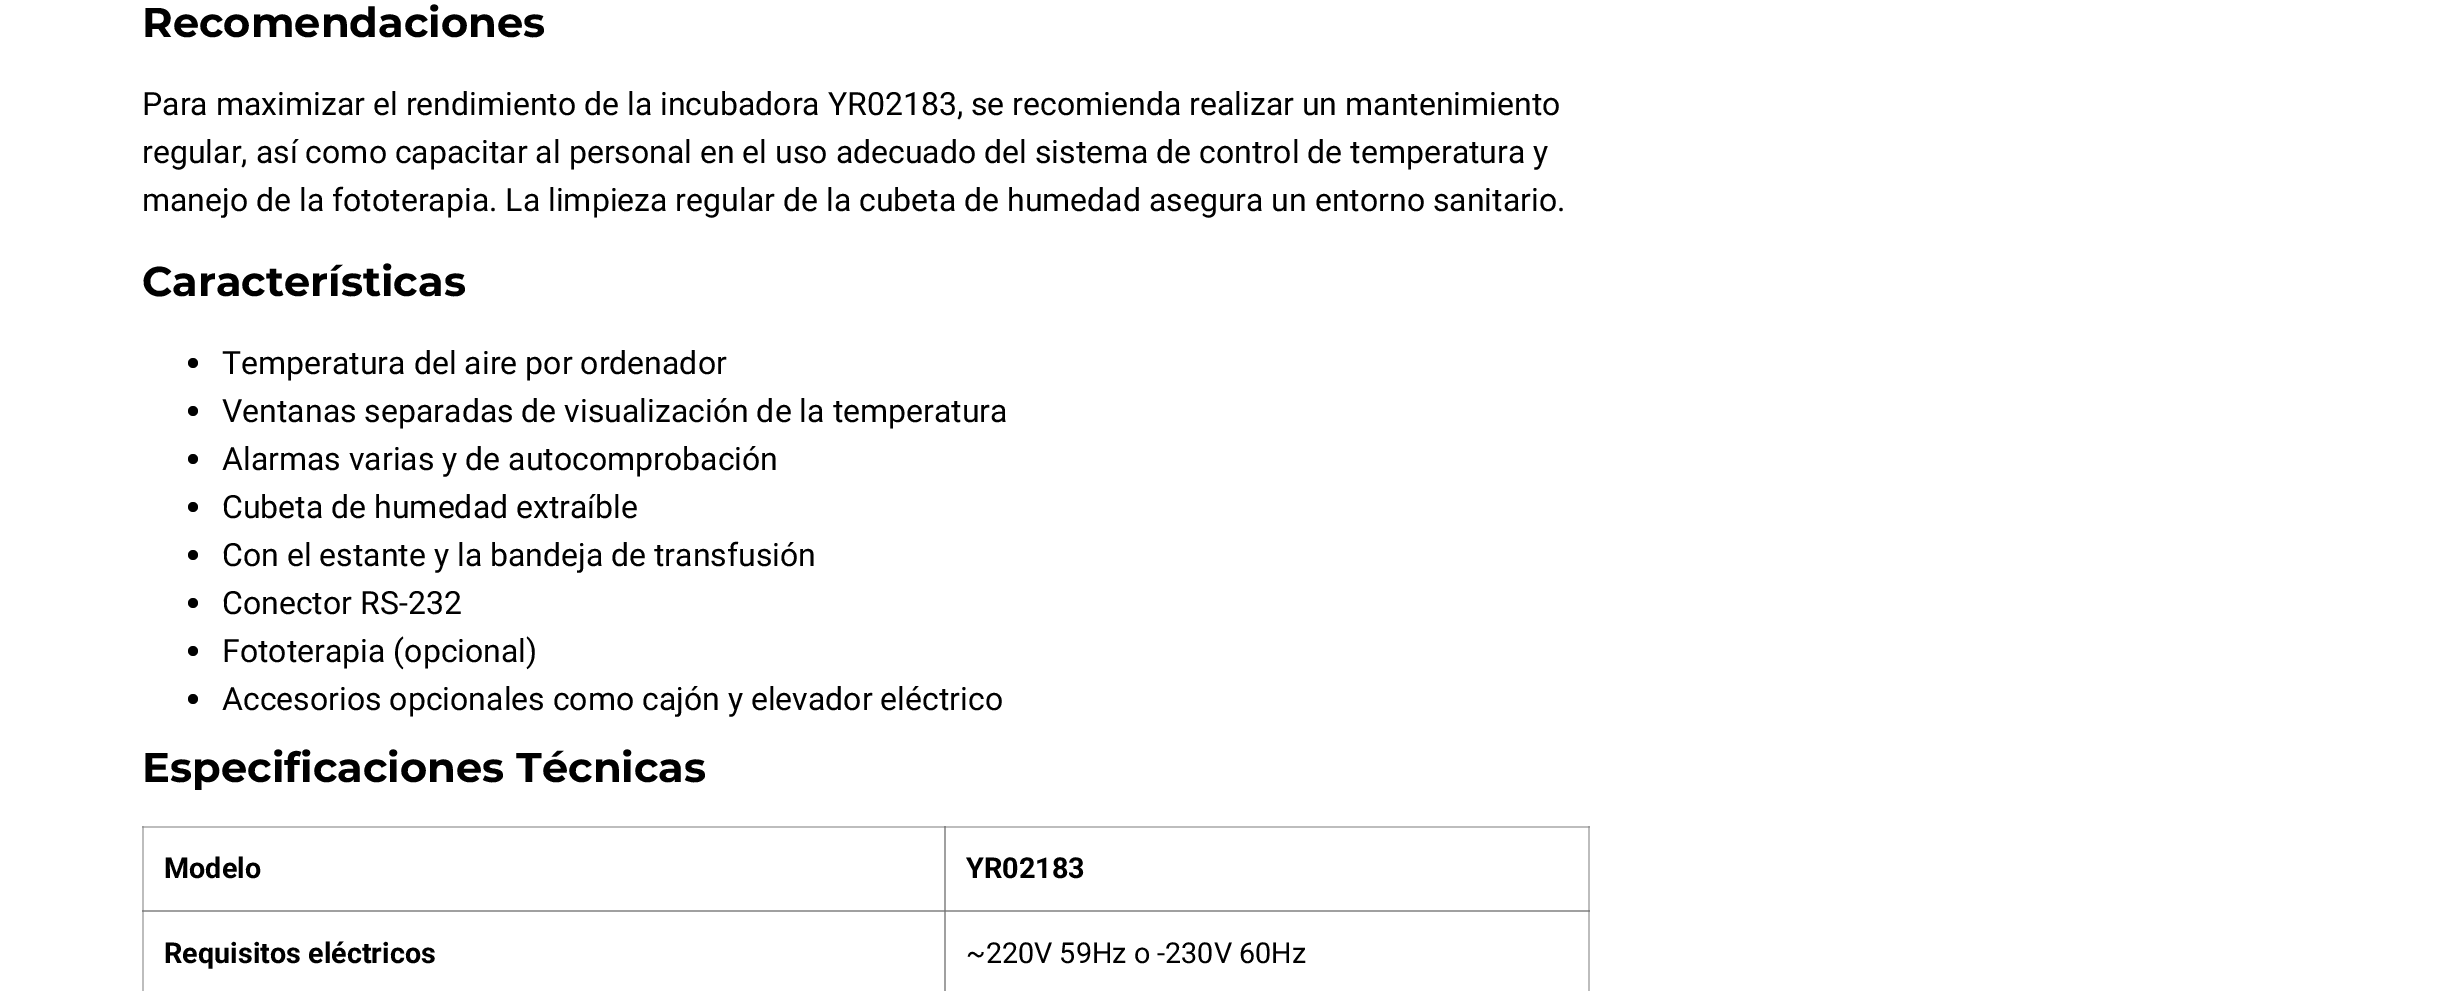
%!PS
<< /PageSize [2443 991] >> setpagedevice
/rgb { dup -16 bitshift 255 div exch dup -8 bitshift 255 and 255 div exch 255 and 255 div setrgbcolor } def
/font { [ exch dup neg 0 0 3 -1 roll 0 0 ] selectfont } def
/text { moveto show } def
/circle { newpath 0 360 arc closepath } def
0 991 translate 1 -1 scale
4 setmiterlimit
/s1 { /Montserrat-Bold 41.6 font 16#000000 rgb } def
/s2 { /Roboto-Regular 32 font 16#000000 rgb } def
/s3 { /Roboto-Bold 28.75 font 16#000000 rgb } def
/s4 { /Roboto-Regular 28.75 font 16#000000 rgb } def
16#FFFFFF rgb
0 0 2443 991 rectfill
16#A0A0A0 rgb
944 826 2 86 rectfill
142 910 804 2 rectfill
944 910 2 81 rectfill
944 910 646 2 rectfill
16#818181 rgb
944 910 2 2 rectfill
s1
(Recomendaciones) 142 37 text
s2
(Para maximizar el rendimiento de la incubadora YR02183, se recomienda realizar un mantenimiento) 142 115 text
(regular, así como capacitar al personal en el uso adecuado del sistema de control de temperatura y) 142 163 text
(manejo de la fototerapia. La limpieza regular de la cubeta de humedad asegura un entorno sanitario.) 142 211 text
s1
(Características) 142 296 text
193 363 5 circle fill
s2
(Temperatura del aire por ordenador) 222 374 text
193 411 5 circle fill
(Ventanas separadas de visualización de la temperatura) 222 422 text
193 459 5 circle fill
(Alarmas varias y de autocomprobación) 222 470 text
193 507 5 circle fill
(Cubeta de humedad extraíble) 222 518 text
193 555 5 circle fill
(Con el estante y la bandeja de transfusión) 222 566 text
193 603 5 circle fill
(Conector RS-232) 222 614 text
193 651 5 circle fill
(Fototerapia \(opcional\)) 222 662 text
193 699 5 circle fill
(Accesorios opcionales como cajón y elevador eléctrico) 222 710 text
s1
(Especificaciones Técnicas) 142 782 text
16#BDBDBD rgb
142 826 804 2 rectfill
1588 826 2 165 rectfill
16#888888 rgb
1588 910 2 2 rectfill
16#BDBDBD rgb
142 826 2 165 rectfill
16#9F9F9F rgb
142 826 2 2 rectfill
16#888888 rgb
142 910 2 2 rectfill
s3
(Modelo) 164 878 text
16#BDBDBD rgb
944 826 646 2 rectfill
16#888888 rgb
944 826 2 2 rectfill
16#9F9F9F rgb
1588 826 2 2 rectfill
s3
(YR02183) 966 878 text
(Requisitos eléctricos) 164 963 text
s4
(~220V 59Hz o -230V 60Hz) 966 963 text
showpage
